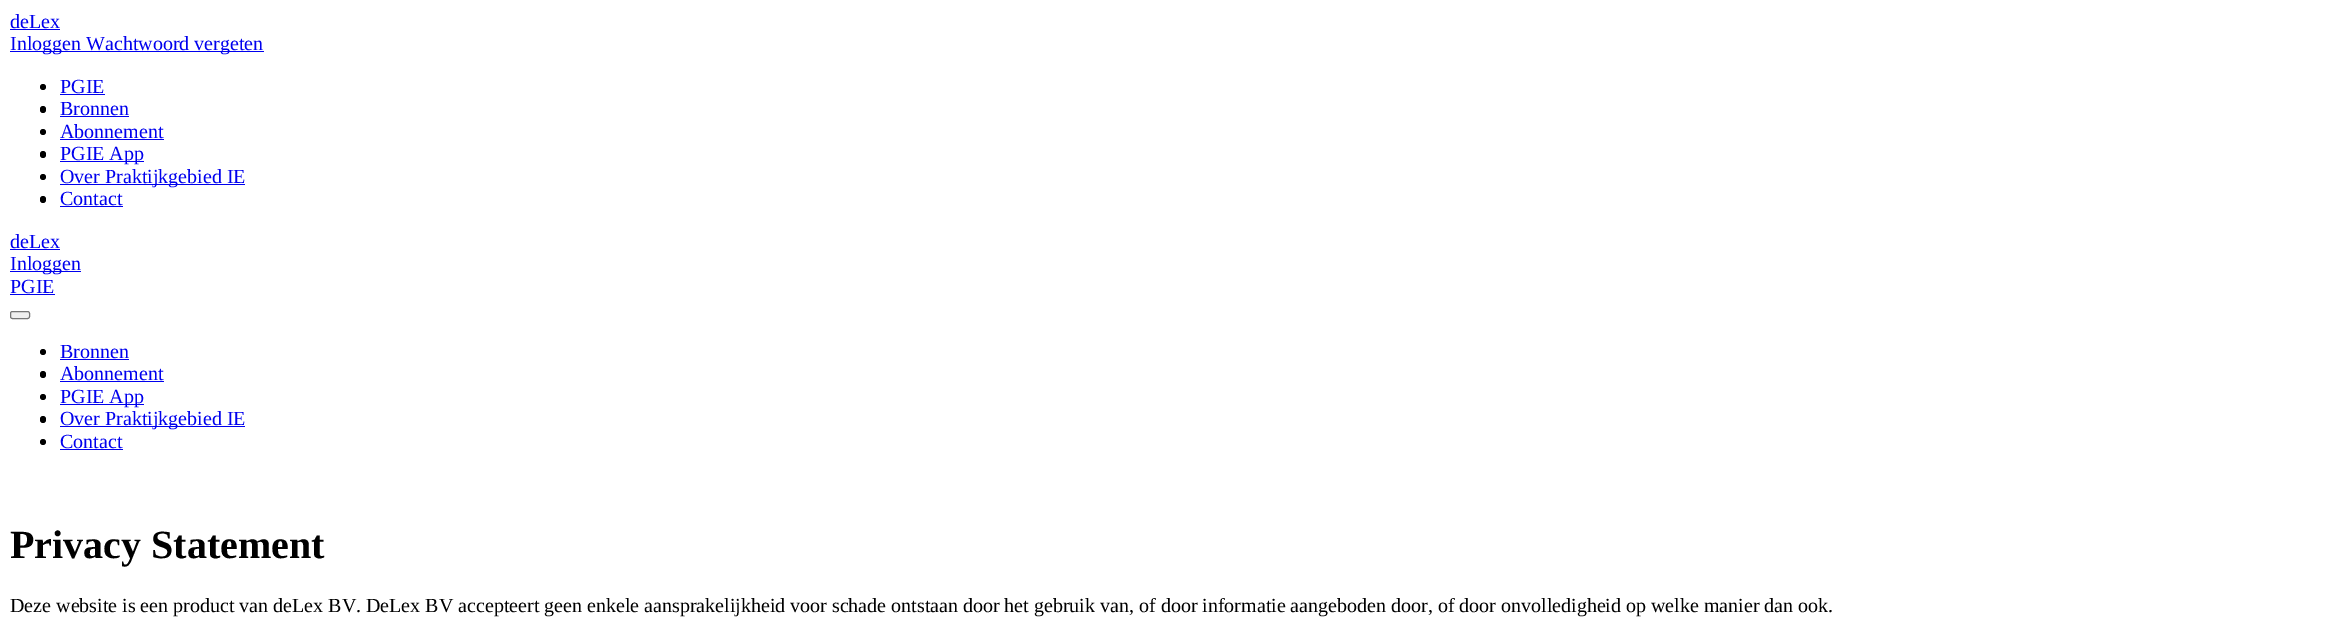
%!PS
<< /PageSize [2342 632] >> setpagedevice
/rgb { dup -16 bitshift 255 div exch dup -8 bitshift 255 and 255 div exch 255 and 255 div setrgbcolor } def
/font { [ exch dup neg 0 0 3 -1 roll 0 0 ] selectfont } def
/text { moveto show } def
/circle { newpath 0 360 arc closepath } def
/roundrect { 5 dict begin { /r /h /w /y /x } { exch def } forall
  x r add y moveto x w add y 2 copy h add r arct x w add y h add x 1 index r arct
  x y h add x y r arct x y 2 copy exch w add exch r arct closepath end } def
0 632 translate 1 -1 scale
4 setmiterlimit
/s1 { /LiberationSerif-Regular 20 font 16#0000EE rgb } def
/s2 { /LiberationSerif-Bold 40 font 16#000000 rgb } def
/s3 { /LiberationSerif-Regular 20 font 16#000000 rgb } def
16#FFFFFF rgb
0 0 2342 632 rectfill
s1
(deLex) 10 28 text
10 29 50 1 rectfill
10 51 254 1 rectfill
(Inloggen Wachtwoord vergeten) 10 50 text
16#000000 rgb
43 87 3 circle fill
s1
(PGIE) 60 93 text
60 94 45 1 rectfill
16#000000 rgb
40 106 6 7 3 roundrect fill
s1
(Bronnen) 60 115 text
60 116 69 1 rectfill
16#000000 rgb
43 132 3 circle fill
s1
(Abonnement) 60 138 text
60 139 104 1 rectfill
16#000000 rgb
40 151 6 7 3 roundrect fill
16#0000EE rgb
60 161 84 1 rectfill
(PGIE App) 60 160 text
16#000000 rgb
43 177 3 circle fill
16#0000EE rgb
60 184 185 1 rectfill
(Over Praktijkgebied IE) 60 183 text
16#000000 rgb
40 196 6 7 3 roundrect fill
s1
(Contact) 60 205 text
60 206 63 1 rectfill
(deLex) 10 248 text
10 249 50 1 rectfill
10 271 71 1 rectfill
(Inloggen) 10 270 text
(PGIE) 10 293 text
10 294 45 1 rectfill
16#EFEFEF rgb
10.5 311.5 19 7 2 roundrect gsave fill grestore
16#767676 rgb
stroke
16#000000 rgb
43 352 3 circle fill
s1
(Bronnen) 60 358 text
60 359 69 1 rectfill
16#000000 rgb
40 371 6 7 3 roundrect fill
s1
(Abonnement) 60 380 text
60 381 104 1 rectfill
16#000000 rgb
43 397 3 circle fill
16#0000EE rgb
60 404 84 1 rectfill
(PGIE App) 60 403 text
16#000000 rgb
40 416 6 7 3 roundrect fill
16#0000EE rgb
60 426 185 1 rectfill
(Over Praktijkgebied IE) 60 425 text
16#000000 rgb
43 442 3 circle fill
s1
(Contact) 60 448 text
60 449 63 1 rectfill
s2
(Privacy Statement) 10 558 text
s3
(Deze website is een product van deLex BV. DeLex BV accepteert geen enkele aansprakelijkheid voor schade ontstaan door het gebruik van, of door informatie aangeboden door, of door onvolledigheid op welke manier dan ook.) 10 612 text
showpage
